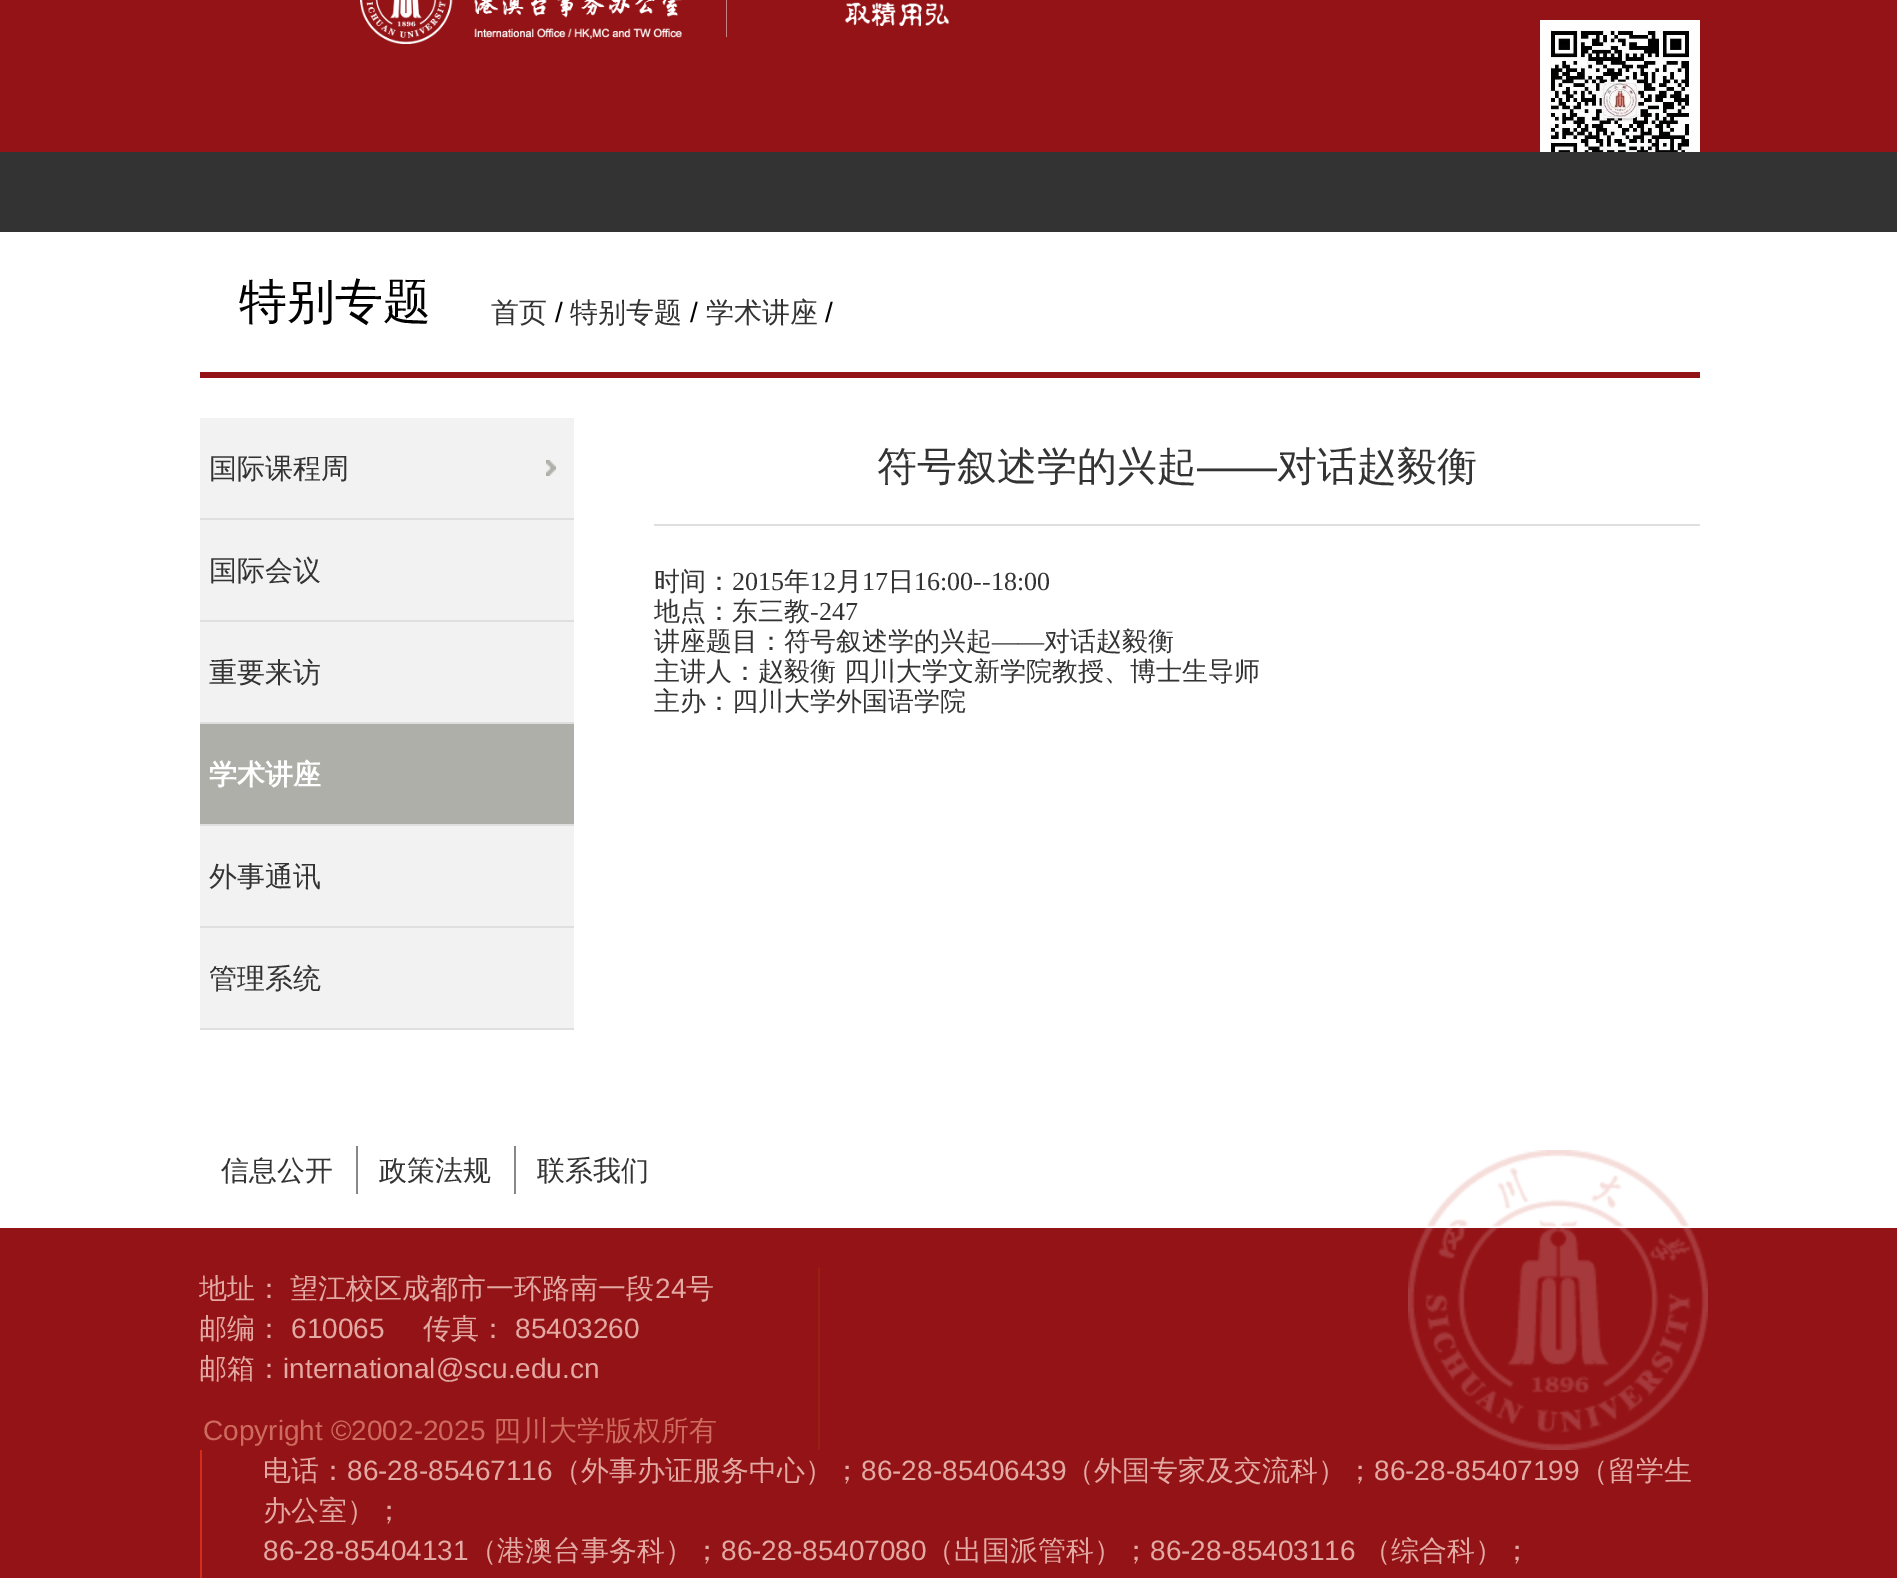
%!PS
<< /PageSize [1897 1578] >> setpagedevice
/rgb { dup -16 bitshift 255 div exch dup -8 bitshift 255 and 255 div exch 255 and 255 div setrgbcolor } def
/font { [ exch dup neg 0 0 3 -1 roll 0 0 ] selectfont } def
/text { moveto show } def
/picture { 5 dict begin { /h /w /y /x /name } { exch def } forall
  gsave x y translate w h scale
  w h 8 [w 0 0 h 0 0] name (r) file false 3 colorimage grestore end } def
0 1578 translate 1 -1 scale
4 setmiterlimit
/s1 { /WenQuanYiZenHei-Medium 48 font 16#000000 rgb } def
/s2 { /WenQuanYiZenHei-Medium 28 font 16#333333 rgb } def
/s3 { /LiberationSans-Regular 28 font 16#000000 rgb } def
/s4 { /WenQuanYiZenHei-Bold 28 font 16#FFFFFF rgb } def
/s5 { /WenQuanYiZenHei-Medium 40 font 16#333333 rgb } def
/s6 { /LiberationSans-Regular 40 font 16#333333 rgb } def
/s7 { /WenQuanYiZenHei-Medium 26 font 16#333333 rgb } def
/s8 { /LiberationSerif-Regular 26 font 16#333333 rgb } def
/s9 { /LiberationSans-Regular 28 font 16#E3AAA3 rgb } def
/s10 { /WenQuanYiZenHei-Medium 28 font 16#E3AAA3 rgb } def
/s11 { /LiberationSans-Regular 28 font 16#CE6B5E rgb } def
/s12 { /WenQuanYiZenHei-Medium 28 font 16#CE6B5E rgb } def
16#FFFFFF rgb
0 0 1897 1578 rectfill
16#941316 rgb
0 0 1897 152 rectfill
(pic1.raw) 360 0 590 44 picture
(pic2.raw) 1540 20 160 132 picture
16#333333 rgb
0 152 1897 80 rectfill
s1
(特别专题) 239 318 text
s2
(首页) 491 322 text
s3
(/) 555 322 text
s2
(特别专题) 570 322 text
s3
(/) 690 322 text
s2
(学术讲座) 706 322 text
s3
(/) 825 322 text
16#941316 rgb
200 372 1500 6 rectfill
16#F2F2F2 rgb
200 418 374 610 rectfill
(pic3.raw) 546 460 10 16 picture
16#DFDFDF rgb
200 518 374 2 rectfill
s2
(国际课程周) 209 478 text
16#DFDFDF rgb
200 620 374 2 rectfill
s2
(国际会议) 209 580 text
16#DFDFDF rgb
200 722 374 2 rectfill
s2
(重要来访) 209 682 text
16#AFAFAA rgb
200 724 374 100 rectfill
16#DFDFDF rgb
200 824 374 2 rectfill
s4
(学术讲座) 209 784 text
16#DFDFDF rgb
200 926 374 2 rectfill
s2
(外事通讯) 209 886 text
16#DFDFDF rgb
200 1028 374 2 rectfill
s2
(管理系统) 209 988 text
16#DFDFDF rgb
654 524 1046 2 rectfill
s5
(符号叙述学的兴起) 877 480 text
s6
(——) 1197 480 text
s5
(对话赵毅衡) 1277 480 text
s7
(时间：) 654 590 text
s8
(2015) 732 590 text
s7
(年) 784 590 text
s8
(12) 810 590 text
s7
(月) 836 590 text
s8
(17) 862 590 text
s7
(日) 888 590 text
s8
(16:00--18:00) 914 590 text
s7
(地点：东三教) 654 620 text
s8
(-247) 810 620 text
s7
(讲座题目：符号叙述学的兴起) 654 650 text
s8
(——) 992 650 text
s7
(对话赵毅衡) 1044 650 text
(主讲人：赵毅衡 四川大学文新学院教授、博士生导师) 654 680 text
(主办：四川大学外国语学院) 654 710 text
s2
(信息公开) 221 1180 text
16#888888 rgb
356 1146 2 48 rectfill
s2
(政策法规) 379 1180 text
16#888888 rgb
514 1146 2 48 rectfill
s2
(联系我们) 537 1180 text
16#941316 rgb
0 1228 1897 350 rectfill
(pic4.raw) 1408 1150 300 300 picture
16#992114 rgb
818 1268 2 182 rectfill
16#E3AAA3 rgb
199 1298 moveto -1 0 32 (地址： 望江校区成都市一环路南一段) widthshow
s9
(24) 655 1298 text
s10
(号) 686 1298 text
(邮编：) 199 1338 text
s9
(610065) 291 1338 text
s10
(传真：) 423 1338 text
s9
(85403260) 515 1338 text
s10
(邮箱：) 199 1378 text
s9
(international@scu.edu.cn) 283 1378 text
s11
(Copyright ©2002-2025) 203 1440 text
s12
(四川大学版权所有) 493 1440 text
16#D32D1C rgb
200 1450 2 128 rectfill
s10
(电话：) 263 1480 text
s9
(86-28-85467116) 347 1480 text
s10
(（外事办证服务中心）；) 553 1480 text
s9
(86-28-85406439) 861 1480 text
s10
(（外国专家及交流科）；) 1066 1480 text
s9
(86-28-85407199) 1374 1480 text
s10
(（留学生) 1580 1480 text
(办公室）；) 263 1520 text
s9
(86-28-85404131) 263 1560 text
s10
(（港澳台事务科）；) 469 1560 text
s9
(86-28-85407080) 721 1560 text
s10
(（出国派管科）；) 926 1560 text
s9
(86-28-85403116) 1150 1560 text
s10
(（综合科）；) 1363 1560 text
showpage
